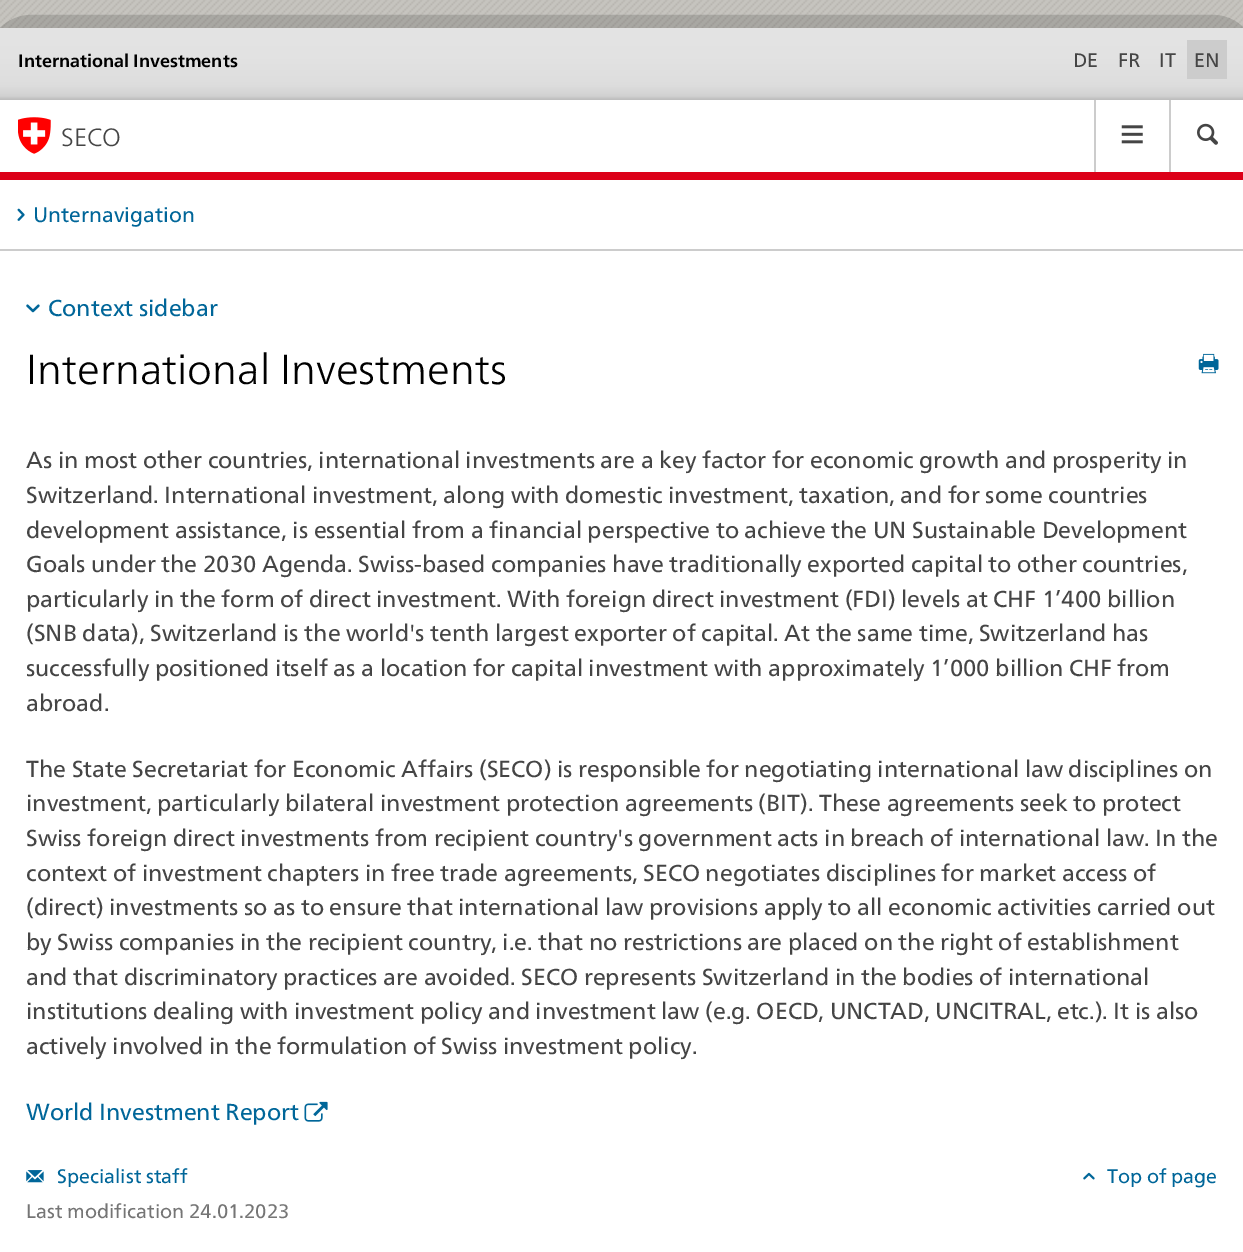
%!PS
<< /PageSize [1243 1252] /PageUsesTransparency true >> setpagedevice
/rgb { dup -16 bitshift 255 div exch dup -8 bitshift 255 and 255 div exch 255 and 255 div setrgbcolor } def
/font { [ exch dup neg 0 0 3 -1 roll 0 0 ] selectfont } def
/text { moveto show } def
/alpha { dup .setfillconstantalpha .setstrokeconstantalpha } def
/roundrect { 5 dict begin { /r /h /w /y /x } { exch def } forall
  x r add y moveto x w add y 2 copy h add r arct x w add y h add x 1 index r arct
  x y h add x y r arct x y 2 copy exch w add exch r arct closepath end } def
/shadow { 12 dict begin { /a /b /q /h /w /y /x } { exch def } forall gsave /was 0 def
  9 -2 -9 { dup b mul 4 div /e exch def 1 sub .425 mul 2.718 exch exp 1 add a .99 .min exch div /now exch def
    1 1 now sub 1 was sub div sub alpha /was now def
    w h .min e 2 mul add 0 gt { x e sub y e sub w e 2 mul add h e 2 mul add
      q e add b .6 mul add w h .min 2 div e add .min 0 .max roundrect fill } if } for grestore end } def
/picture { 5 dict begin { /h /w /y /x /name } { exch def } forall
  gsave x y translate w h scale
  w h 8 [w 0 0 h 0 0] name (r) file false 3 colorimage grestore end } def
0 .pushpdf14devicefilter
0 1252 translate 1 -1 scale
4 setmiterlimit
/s1 { /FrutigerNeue-Bold 17.8 font 16#000000 rgb } def
/s2 { /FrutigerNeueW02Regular-Regular 19.6 font 16#454545 rgb } def
/s3 { /FrutigerNeue-Light 25 font 16#454545 rgb } def
/s4 { /FrutigerNeueW02Regular-Regular 21 font 16#006699 rgb } def
/s5 { /FrutigerNeueW02Regular-Regular 23.1 font 16#006699 rgb } def
/s6 { /FrutigerNeue-Light 42 font 16#000000 rgb } def
/s7 { /FrutigerNeueW02Regular-Regular 23.1 font 16#454545 rgb } def
/s8 { /FrutigerNeueW02Regular-Regular 19.6 font 16#006699 rgb } def
/s9 { /FrutigerNeueW02Regular-Regular 19.6 font 16#757575 rgb } def
16#FFFFFF rgb
0 0 1243 1252 rectfill
(pic1.raw) 0 0 1243 28 picture
16#000000 rgb
0 28 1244 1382 0 52.5 0.6 shadow
16#FFFFFF rgb
0 100 1243 1152 rectfill
gsave 0 28 moveto 1243 28 lineto 1243 100 lineto 0 100 lineto closepath clip newpath
<< /ShadingType 2 /ColorSpace /DeviceRGB /Coords [622 28 622 100] /Extend [true true] /Function << /FunctionType 3 /Domain [0 1] /Functions [<< /FunctionType 2 /Domain [0 1] /C0 [0.894 0.894 0.894] /C1 [0.886 0.886 0.886] /N 1 >> << /FunctionType 2 /Domain [0 1] /C0 [0.886 0.886 0.886] /C1 [0.867 0.867 0.867] /N 1 >> << /FunctionType 2 /Domain [0 1] /C0 [0.867 0.867 0.867] /C1 [0.835 0.835 0.835] /N 1 >> << /FunctionType 2 /Domain [0 1] /C0 [0.835 0.835 0.835] /C1 [0.812 0.812 0.812] /N 1 >> << /FunctionType 2 /Domain [0 1] /C0 [0.812 0.812 0.812] /C1 [0.745 0.745 0.745] /N 1 >> << /FunctionType 2 /Domain [0 1] /C0 [0.745 0.745 0.745] /C1 [0.745 0.745 0.745] /N 1 >>] /Bounds [0.39 0.79 0.91 0.95 0.99] /Encode [0 1 0 1 0 1 0 1 0 1 0 1] >> >> shfill grestore
s1
(International Investments) 18 67 text
s2
(DE) 1073 67 text
(FR) 1118 67 text
(IT) 1159 67 text
16#CCCCCC rgb
1187 40 40 39 rectfill
s2
(EN) 1194 67 text
16#DC0018 rgb
0 172 1243 8 rectfill
(pic2.raw) 18 117 33 37 picture
s3
(SECO) 61 146 text
16#CCCCCC rgb
1094 100 2 72 rectfill
(pic3.raw) 1121 125 22 19 picture
1169 100 2 72 rectfill
(pic4.raw) 1197 123 21 22 picture
0 249 1243 2 rectfill
(pic5.raw) 17 208 8 13 picture
s4
(Unternavigation) 33 222 text
(pic6.raw) 26 304 14 9 picture
s5
(Context sidebar) 48 316 text
s6
(International Investments) 26 384 text
(pic7.raw) 1198 353 21 21 picture
s7
(As in most other countries, international investments are a key factor for economic growth and prosperity in) 26 468 text
(Switzerland. International investment, along with domestic investment, taxation, and for some countries) 26 503 text
(development assistance, is essential from a financial perspective to achieve the UN Sustainable Development) 26 538 text
(Goals under the 2030 Agenda. Swiss-based companies have traditionally exported capital to other countries,) 26 572 text
(particularly in the form of direct investment. With foreign direct investment \(FDI\) levels at CHF 1’400 billion) 26 607 text
(\(SNB data\), Switzerland is the world's tenth largest exporter of capital. At the same time, Switzerland has) 26 641 text
(successfully positioned itself as a location for capital investment with approximately 1’000 billion CHF from) 26 676 text
(abroad.) 26 711 text
(The State Secretariat for Economic Affairs \(SECO\) is responsible for negotiating international law disciplines on) 26 777 text
(investment, particularly bilateral investment protection agreements \(BIT\). These agreements seek to protect) 26 811 text
(Swiss foreign direct investments from recipient country's government acts in breach of international law. In the) 26 846 text
(context of investment chapters in free trade agreements, SECO negotiates disciplines for market access of) 26 881 text
(\(direct\) investments so as to ensure that international law provisions apply to all economic activities carried out) 26 915 text
(by Swiss companies in the recipient country, i.e. that no restrictions are placed on the right of establishment) 26 950 text
(and that discriminatory practices are avoided. SECO represents Switzerland in the bodies of international) 26 985 text
(institutions dealing with investment policy and investment law \(e.g. OECD, UNCTAD, UNCITRAL, etc.\). It is also) 26 1019 text
(actively involved in the formulation of Swiss investment policy.) 26 1054 text
s5
(World Investment Report) 26 1120 text
(pic8.raw) 304 1101 24 21 picture
(pic9.raw) 26 1170 18 13 picture
s8
(Specialist staff) 57 1183 text
s9
(Last modification 24.01.2023) 26 1218 text
(pic10.raw) 1083 1172 12 8 picture
s8
(Top of page) 1107 1183 text
.poppdf14devicefilter showpage
